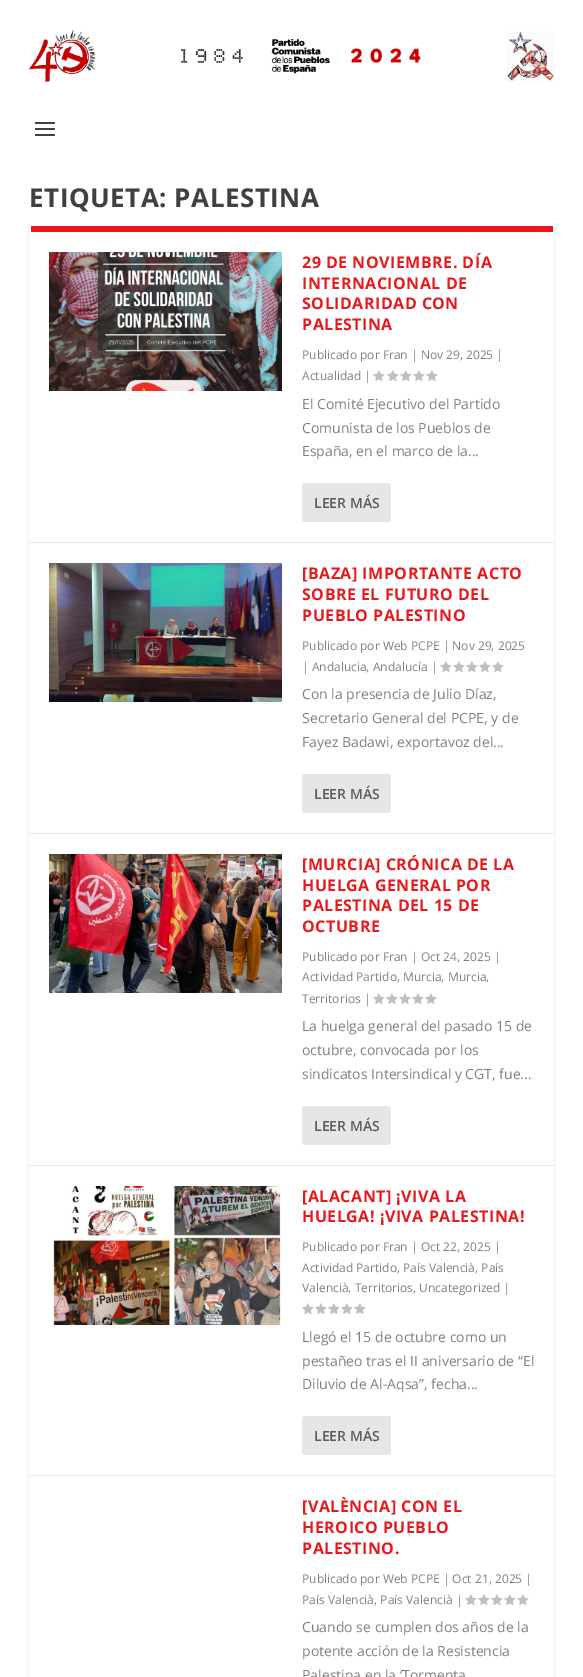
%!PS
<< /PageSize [583 1677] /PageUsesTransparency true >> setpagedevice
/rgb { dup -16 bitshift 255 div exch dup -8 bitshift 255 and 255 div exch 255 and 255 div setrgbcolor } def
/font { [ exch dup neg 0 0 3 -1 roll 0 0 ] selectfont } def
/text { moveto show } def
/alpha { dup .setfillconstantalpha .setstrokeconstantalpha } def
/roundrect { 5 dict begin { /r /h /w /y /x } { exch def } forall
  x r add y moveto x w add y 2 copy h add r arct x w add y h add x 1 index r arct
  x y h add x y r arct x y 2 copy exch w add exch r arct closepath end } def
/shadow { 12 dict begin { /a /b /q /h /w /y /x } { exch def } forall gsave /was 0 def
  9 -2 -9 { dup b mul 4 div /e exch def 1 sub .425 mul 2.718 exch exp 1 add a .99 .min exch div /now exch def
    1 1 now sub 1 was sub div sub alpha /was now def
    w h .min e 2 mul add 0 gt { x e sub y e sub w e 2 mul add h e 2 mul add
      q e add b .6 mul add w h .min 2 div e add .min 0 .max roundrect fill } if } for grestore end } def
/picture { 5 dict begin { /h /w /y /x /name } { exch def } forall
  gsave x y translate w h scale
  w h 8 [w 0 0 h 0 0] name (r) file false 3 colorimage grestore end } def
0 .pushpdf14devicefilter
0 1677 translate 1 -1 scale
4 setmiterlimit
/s1 { /OpenSans-Regular 12 font 16#808080 rgb } def
/s2 { /OpenSans-Regular 14 font 16#808080 rgb } def
/s3 { /OpenSans-SemiBold 14 font 16#5C5C5C rgb } def
16#FFFFFF rgb
0 0 583 1677 rectfill
(pic1.raw) 29 30 525 52 picture
16#404040 rgb
35 122 20 2 1 roundrect fill
35 128 20 2 1 roundrect fill
35 134 20 2 1 roundrect fill
/OpenSans-Bold 26 font
29 207 moveto 0.5 0 (ETIQUETA: PALESTINA) ashow
16#000000 rgb
29 227 525 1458 3 1.5 0.1 shadow
16#FFFFFF rgb
29 226 525 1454 3 roundrect fill
16#E6191D rgb
31 226 522 6 rectfill
16#E6E6E6 rgb
29 542 525 1 rectfill
(pic2.raw) 49 252 233 139 picture
/OpenSans-Bold 16 font
16#E6191D rgb
302 268 moveto 0.5 0 (29 DE NOVIEMBRE. DÍA) ashow
302 289 moveto 0.5 0 (INTERNACIONAL DE) ashow
302 309 moveto 0.5 0 (SOLIDARIDAD CON) ashow
302 330 moveto 0.5 0 (PALESTINA) ashow
s1
(Publicado por Fran | Nov 29, 2025 |) 302 359 text
(Actualidad |) 302 380 text
(pic3.raw) 373 370 12 12 picture
(pic3.raw) 387 370 12 12 picture
(pic3.raw) 400 370 12 12 picture
(pic3.raw) 413 370 12 12 picture
(pic3.raw) 426 370 12 12 picture
s2
(El Comité Ejecutivo del Partido) 302 409 text
(Comunista de los Pueblos de) 302 433 text
(España, en el marco de la...) 302 456 text
16#E6E6E6 rgb
302 483 89 39 3 roundrect fill
s3
(LEER MÁS) 314 508 text
16#E6E6E6 rgb
29 833 525 1 rectfill
(pic4.raw) 49 563 233 139 picture
/OpenSans-Bold 16 font
16#E6191D rgb
302 579 moveto 0.5 0 ([BAZA] IMPORTANTE ACTO) ashow
302 600 moveto 0.5 0 (SOBRE EL FUTURO DEL) ashow
302 621 moveto 0.5 0 (PUEBLO PALESTINO) ashow
s1
(Publicado por Web PCPE | Nov 29, 2025) 302 650 text
(| Andalucia, Andalucía |) 302 671 text
(pic3.raw) 440 661 12 12 picture
(pic3.raw) 453 661 12 12 picture
(pic3.raw) 466 661 12 12 picture
(pic3.raw) 479 661 12 12 picture
(pic3.raw) 492 661 12 12 picture
s2
(Con la presencia de Julio Díaz,) 302 699 text
(Secretario General del PCPE, y de) 302 723 text
(Fayez Badawi, exportavoz del...) 302 747 text
16#E6E6E6 rgb
302 774 89 39 3 roundrect fill
s3
(LEER MÁS) 314 799 text
16#E6E6E6 rgb
29 1165 525 1 rectfill
(pic5.raw) 49 854 233 139 picture
/OpenSans-Bold 16 font
16#E6191D rgb
302 870 moveto 0.5 0 ([MURCIA] CRÓNICA DE LA) ashow
302 891 moveto 0.5 0 (HUELGA GENERAL POR) ashow
302 911 moveto 0.5 0 (PALESTINA DEL 15 DE) ashow
302 932 moveto 0.5 0 (OCTUBRE) ashow
s1
(Publicado por Fran | Oct 24, 2025 |) 302 961 text
(Actividad Partido, Murcia, Murcia,) 302 981 text
(Territorios |) 302 1003 text
(pic3.raw) 373 993 12 12 picture
(pic3.raw) 386 993 12 12 picture
(pic3.raw) 399 993 12 12 picture
(pic3.raw) 412 993 12 12 picture
(pic3.raw) 425 993 12 12 picture
s2
(La huelga general del pasado 15 de) 302 1031 text
(octubre, convocada por los) 302 1055 text
(sindicatos Intersindical y CGT, fue...) 302 1079 text
16#E6E6E6 rgb
302 1106 89 39 3 roundrect fill
s3
(LEER MÁS) 314 1131 text
16#E6E6E6 rgb
29 1475 525 1 rectfill
(pic6.raw) 49 1186 233 139 picture
/OpenSans-Bold 16 font
16#E6191D rgb
302 1202 moveto 0.5 0 ([ALACANT] ¡VIVA LA) ashow
302 1222 moveto 0.5 0 (HUELGA! ¡VIVA PALESTINA!) ashow
s1
(Publicado por Fran | Oct 22, 2025 |) 302 1251 text
(Actividad Partido, País Valencià, País) 302 1272 text
(Valencià, Territorios, Uncategorized |) 302 1292 text
(pic3.raw) 302 1303 12 12 picture
(pic3.raw) 315 1303 12 12 picture
(pic3.raw) 328 1303 12 12 picture
(pic3.raw) 341 1303 12 12 picture
(pic3.raw) 354 1303 12 12 picture
s2
(Llegó el 15 de octubre como un) 302 1342 text
(pestañeo tras el II aniversario de “El) 302 1366 text
(Diluvio de Al-Aqsa”, fecha...) 302 1389 text
16#E6E6E6 rgb
302 1416 89 39 3 roundrect fill
s3
(LEER MÁS) 314 1441 text
/OpenSans-Bold 16 font
16#E6191D rgb
302 1512 moveto 0.5 0 ([VALÈNCIA] CON EL) ashow
302 1533 moveto 0.5 0 (HEROICO PUEBLO) ashow
302 1554 moveto 0.5 0 (PALESTINO.) ashow
s1
(Publicado por Web PCPE | Oct 21, 2025 |) 302 1583 text
(País Valencià, País Valencià |) 302 1604 text
(pic3.raw) 465 1594 12 12 picture
(pic3.raw) 478 1594 12 12 picture
(pic3.raw) 491 1594 12 12 picture
(pic3.raw) 504 1594 12 12 picture
(pic3.raw) 517 1594 12 12 picture
s2
(Cuando se cumplen dos años de la) 302 1632 text
(potente acción de la Resistencia) 302 1656 text
(Palestina en la ‘Tormenta) 302 1680 text
.poppdf14devicefilter showpage
